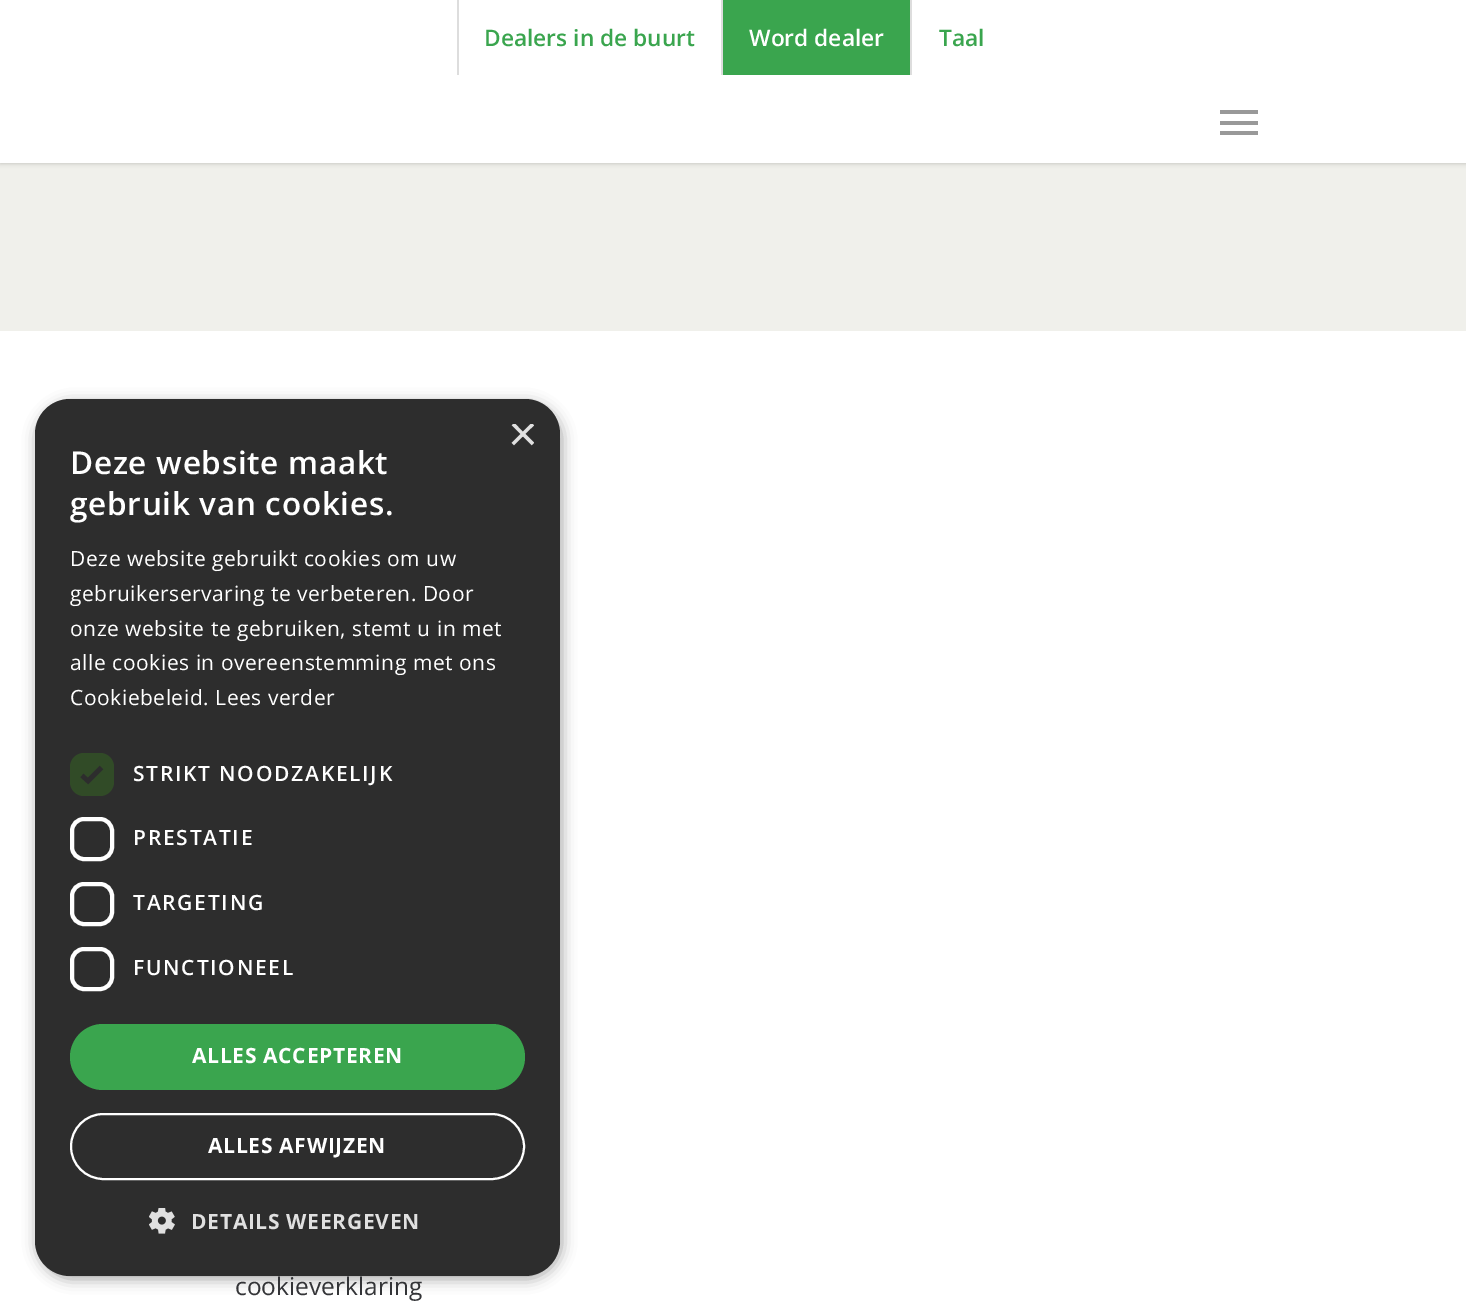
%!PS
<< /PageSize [1466 1310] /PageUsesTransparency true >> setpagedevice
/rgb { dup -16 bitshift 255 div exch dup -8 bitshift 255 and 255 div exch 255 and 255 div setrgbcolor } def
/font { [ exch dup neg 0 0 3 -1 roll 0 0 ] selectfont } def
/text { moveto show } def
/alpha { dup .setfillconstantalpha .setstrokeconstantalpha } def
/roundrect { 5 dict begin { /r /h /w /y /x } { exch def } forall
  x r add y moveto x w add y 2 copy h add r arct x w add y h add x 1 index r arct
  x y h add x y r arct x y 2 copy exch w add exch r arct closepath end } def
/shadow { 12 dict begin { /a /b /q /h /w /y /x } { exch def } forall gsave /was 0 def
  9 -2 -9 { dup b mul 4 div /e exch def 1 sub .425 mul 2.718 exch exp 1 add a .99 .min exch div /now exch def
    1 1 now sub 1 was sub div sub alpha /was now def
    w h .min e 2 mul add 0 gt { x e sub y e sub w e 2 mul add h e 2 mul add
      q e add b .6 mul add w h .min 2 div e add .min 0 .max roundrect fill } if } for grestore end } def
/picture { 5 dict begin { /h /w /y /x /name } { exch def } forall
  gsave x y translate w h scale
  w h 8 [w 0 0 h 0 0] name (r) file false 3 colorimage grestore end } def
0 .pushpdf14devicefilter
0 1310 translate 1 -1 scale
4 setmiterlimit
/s1 { /OpenSans-SemiBold 22.75 font 16#3AA54E rgb } def
/s2 { /OpenSans-SemiBold 22.75 font 16#FFFFFF rgb } def
/s3 { /LiberationSans-Regular 51 font 16#E0E0E0 rgb } def
/s4 { /OpenSans-Regular 24.5 font 16#333437 rgb } def
16#F0F0EB rgb
0 0 1466 1310 rectfill
16#000000 rgb
0 0 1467 163 0 2.5 0.22 shadow
16#FFFFFF rgb
0 0 1466 163 rectfill
16#DDDDDD rgb
457 0 2 75 rectfill
s1
(Dealers in de buurt) 484 46 text
723 0 187 75 rectfill
16#DDDDDD rgb
721 0 2 75 rectfill
s2
(Word dealer) 749 46 text
16#DDDDDD rgb
910 0 2 75 rectfill
s1
(Taal) 939 46 text
16#999999 rgb
1220 110 38 4 rectfill
1220 131 38 4 rectfill
1220 121 38 4 rectfill
16#FFFFFF rgb
0 331 1466 979 rectfill
16#000000 rgb
37 403 525 876 35 7 0.35 shadow
16#2D2D2D rgb
35 399 525 877 35 roundrect fill
gsave
508 424 26 26 rectclip
s3
(×) 508 451 text
grestore
/OpenSans-SemiBold 31.5 font
16#FFFFFF rgb
70 474 moveto 0.7 0 (Deze website maakt) ashow
70 515 moveto 0.7 0 (gebruik van cookies.) ashow
/OpenSans-Regular 21 font
70 566 moveto 0.55 0 (Deze website gebruikt cookies om uw) ashow
70 601 moveto 0.55 0 (gebruikerservaring te verbeteren. Door) ashow
70 636 moveto 0.55 0 (onze website te gebruiken, stemt u in met) ashow
70 670 moveto 0.55 0 (alle cookies in overeenstemming met ons) ashow
70 705 moveto 0.55 0 (Cookiebeleid. Lees verder) ashow
16#314B27 rgb
70 753 44 43 14 roundrect fill
16#2D2D2D rgb
4.6 setlinewidth
82 775.5 moveto 88 781 lineto 101.5 767.5 lineto stroke
/OpenSans-SemiBold 21 font
16#FFFFFF rgb
133 781 moveto 1.75 0 (STRIKT NOODZAKELIJK) ashow
4 setlinewidth
72 819 40 40 12 roundrect stroke
133 845 moveto 1.75 0 (PRESTATIE) ashow
72 884 40 40 12 roundrect stroke
133 910 moveto 1.75 0 (TARGETING) ashow
72 949 40 40 12 roundrect stroke
133 975 moveto 1.75 0 (FUNCTIONEEL) ashow
16#3AA54E rgb
70 1024 455 66 33 roundrect fill
/OpenSans-Bold 21 font
16#FFFFFF rgb
192 1063 moveto 0.7 0 (ALLES ACCEPTEREN) ashow
2 setlinewidth
71 1114 453 65 32.5 roundrect stroke
208 1153 moveto 0.7 0 (ALLES AFWIJZEN) ashow
(pic1.raw) 149 1208 26 26 picture
16#E0E0E0 rgb
191 1229 moveto 0.7 0 (DETAILS WEERGEVEN) ashow
s4
(cookieverklaring) 235 1295 text
.poppdf14devicefilter showpage
